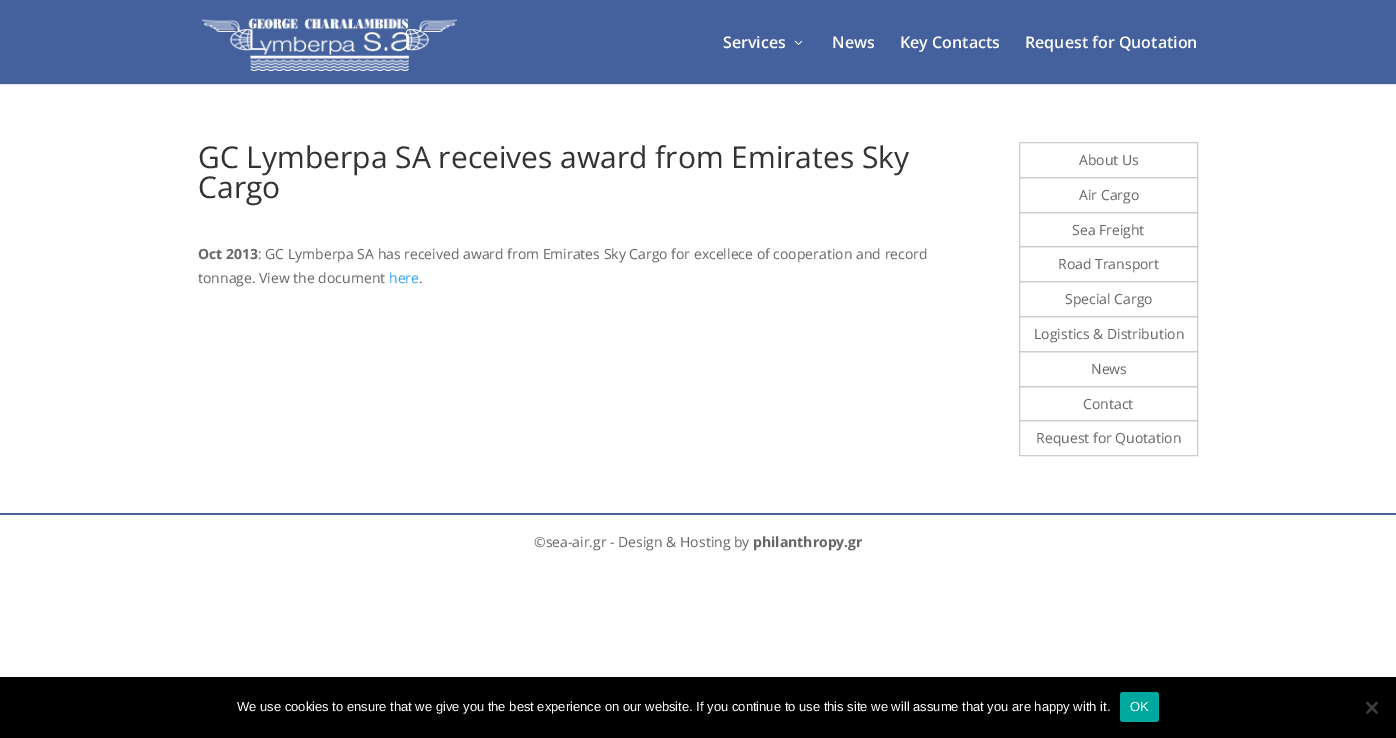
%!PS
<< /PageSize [1396 738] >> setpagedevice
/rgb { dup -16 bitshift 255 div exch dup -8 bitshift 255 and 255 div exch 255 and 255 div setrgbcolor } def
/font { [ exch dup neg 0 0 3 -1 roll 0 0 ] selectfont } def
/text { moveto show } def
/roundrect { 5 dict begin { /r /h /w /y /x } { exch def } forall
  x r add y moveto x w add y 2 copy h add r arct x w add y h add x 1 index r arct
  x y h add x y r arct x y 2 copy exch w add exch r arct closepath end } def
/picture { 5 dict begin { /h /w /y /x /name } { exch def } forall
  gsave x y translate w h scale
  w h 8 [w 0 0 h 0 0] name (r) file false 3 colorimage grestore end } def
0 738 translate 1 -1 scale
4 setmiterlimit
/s1 { /OpenSans-SemiBold 16 font 16#FFFFFF rgb } def
/s2 { /OpenSans-Regular 30 font 16#333333 rgb } def
/s3 { /OpenSans-Bold 14 font 16#666666 rgb } def
/s4 { /OpenSans-Regular 14 font 16#666666 rgb } def
/s5 { /OpenSans-Regular 14 font 16#2EA3F2 rgb } def
/s6 { /LiberationSans-Regular 13 font 16#FFFFFF rgb } def
16#FFFFFF rgb
0 0 1396 738 rectfill
16#E6E6E6 rgb
0 84 1396 1 rectfill
16#45619D rgb
0 0 1396 84 rectfill
(pic1.raw) 202 18 255 53 picture
s1
(Services) 723 48 text
(pic2.raw) 794 40 9 5 picture
(News) 832 48 text
(Key Contacts) 900 48 text
(Request for Quotation) 1025 48 text
s2
(GC Lymberpa SA receives award from Emirates Sky) 198 168 text
(Cargo) 198 198 text
s3
(Oct 2013) 198 259 text
s4
(: GC Lymberpa SA has received award from Emirates Sky Cargo for excellece of cooperation and record) 258 259 text
(tonnage. View the document) 198 283 text
s5
(here) 389 283 text
s4
(.) 419 283 text
16#CCCCCC rgb
1019.5 142.5 178 35 rectstroke
s4
(About Us) 1079 165 text
16#CCCCCC rgb
1019.5 177.5 178 35 rectstroke
s4
(Air Cargo) 1079 200 text
16#CCCCCC rgb
1019.5 212.5 178 34 rectstroke
s4
(Sea Freight) 1072 235 text
16#CCCCCC rgb
1019.5 246.5 178 35 rectstroke
s4
(Road Transport) 1058 269 text
16#CCCCCC rgb
1019.5 281.5 178 35 rectstroke
s4
(Special Cargo) 1065 304 text
16#CCCCCC rgb
1019.5 316.5 178 35 rectstroke
s4
(Logistics & Distribution) 1034 339 text
16#CCCCCC rgb
1019.5 351.5 178 35 rectstroke
s4
(News) 1091 374 text
16#CCCCCC rgb
1019.5 386.5 178 34 rectstroke
s4
(Contact) 1083 409 text
16#CCCCCC rgb
1019.5 420.5 178 35 rectstroke
s4
(Request for Quotation) 1036 443 text
16#45619D rgb
0 513 1396 2 rectfill
s4
(©sea-air.gr - Design & Hosting by) 534 547 text
s3
(philanthropy.gr) 753 547 text
16#000000 rgb
0 677 1396 61 rectfill
s6
(We use cookies to ensure that we give you the best experience on our website. If you continue to use this site we will assume that you are happy with it.) 237 711 text
16#00A99D rgb
1120 692 39 30 3 roundrect fill
s6
(OK) 1130 711 text
16#404040 rgb
1376.5 701.5 moveto 1378 703 lineto 1367.5 714 lineto 1366 712.5 lineto closepath fill
1366 703 moveto 1367.5 701.5 lineto 1378 712.5 lineto 1376.5 714 lineto closepath fill
showpage
